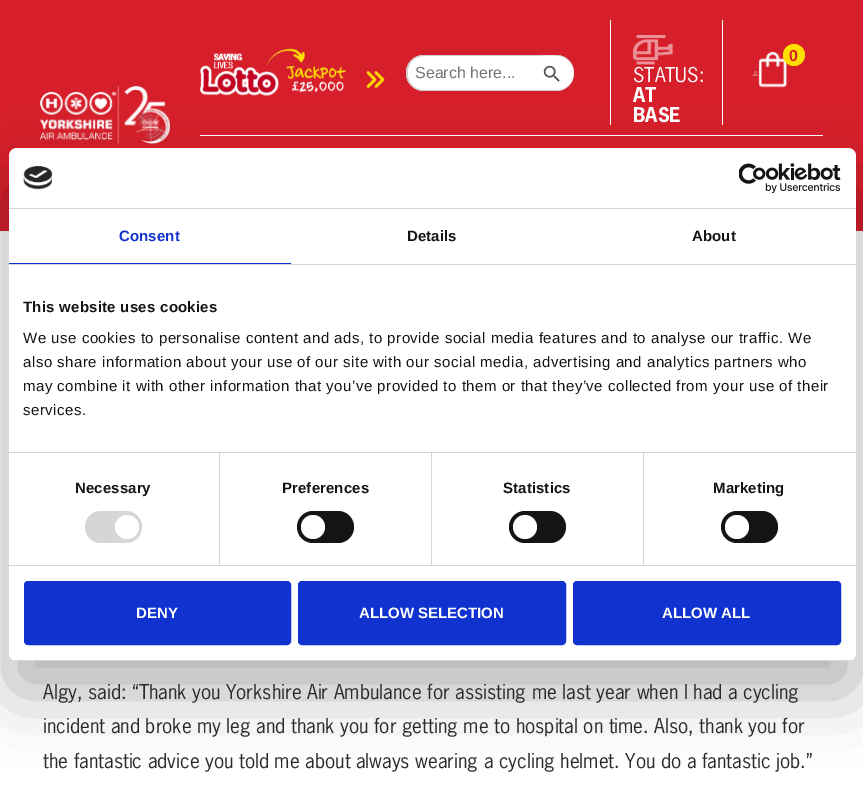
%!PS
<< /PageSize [863 809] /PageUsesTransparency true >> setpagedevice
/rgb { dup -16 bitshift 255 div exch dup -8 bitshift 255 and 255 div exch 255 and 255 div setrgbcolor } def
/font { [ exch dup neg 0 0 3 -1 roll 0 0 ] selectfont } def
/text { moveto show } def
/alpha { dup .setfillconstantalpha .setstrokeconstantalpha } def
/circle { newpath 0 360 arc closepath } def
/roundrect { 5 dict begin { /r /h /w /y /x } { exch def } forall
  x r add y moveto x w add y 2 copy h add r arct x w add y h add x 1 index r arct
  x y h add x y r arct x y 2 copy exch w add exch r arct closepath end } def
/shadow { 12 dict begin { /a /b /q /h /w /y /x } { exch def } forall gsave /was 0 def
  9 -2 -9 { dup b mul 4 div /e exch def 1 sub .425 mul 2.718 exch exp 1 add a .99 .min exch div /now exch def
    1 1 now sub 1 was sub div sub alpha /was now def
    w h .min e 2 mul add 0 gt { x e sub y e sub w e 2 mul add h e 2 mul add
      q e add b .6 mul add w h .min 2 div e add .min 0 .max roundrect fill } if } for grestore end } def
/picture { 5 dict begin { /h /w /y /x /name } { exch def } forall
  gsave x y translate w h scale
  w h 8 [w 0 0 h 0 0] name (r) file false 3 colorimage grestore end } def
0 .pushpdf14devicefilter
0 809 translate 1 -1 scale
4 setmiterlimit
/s1 { /LiberationSans-Bold 16 font 16#D71F2B rgb } def
/s2 { /LiberationSans-Regular 16 font 16#757575 rgb } def
/s3 { /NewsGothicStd-Regular 19.2 font 16#FFFFFF rgb } def
/s4 { /NewsGothicStd-Bold 19.2 font 16#FFFFFF rgb } def
/s5 { /LiberationSans-Bold 15 font 16#FFFFFF rgb } def
/s6 { /NewsGothicStd-Regular 19.2 font 16#2D2926 rgb } def
16#FFFFFF rgb
0 0 863 809 rectfill
16#D71F2B rgb
0 0 863 231 rectfill
(pic1.raw) 40 86 130 58 picture
16#FFFFFF rgb
200 135 623 1 rectfill
(pic2.raw) 200 48 185 48 picture
(pic3.raw) 758 52 29 36 picture
16#FFDF00 rgb
794 55 11 circle fill
s1
(0) 789 61 text
(pic4.raw) 753 71 5 5 picture
16#FFFFFF rgb
610 20 1 105 rectfill
406 55 168 36 18 roundrect fill
16#CCCCCC rgb
424 55 moveto 556 55 lineto 566 55 574 63 574 73 curveto 574 83 566 91 556 91 curveto 424 91 lineto 414 91 406 83 406 73 curveto 406 63 414 55 424 55 curveto closepath 424 56 moveto 534 56 lineto 539 56 555 54 563 57 curveto 579 64 577 86 560 90 curveto 424 90 lineto 402 90 402 56 424 56 curveto closepath eofill
s2
(Search here...) 415 78 text
(pic5.raw) 543 65 17 17 picture
16#FFFFFF rgb
722 20 1 105 rectfill
(pic6.raw) 633 35 40 30 picture
s3
(STATUS:) 633 82 text
s4
(AT) 633 102 text
(BASE) 633 122 text
16#000000 rgb
9 180 847 513 8 34 0.3 shadow
16#FFFFFF rgb
9 148 847 513 8 roundrect fill
16#D6D6D6 rgb
9 208 847 1 rectfill
(pic7.raw) 23 166 30 24 picture
(pic8.raw) 739 163 102 30 picture
9 264 847 1 rectfill
16#1032CF rgb
9 263 282 1 rectfill
/LiberationSans-Bold 15 font
119 241 moveto 0.1 0 (Consent) ashow
16#141414 rgb
407 241 moveto 0.1 0 (Details) ashow
692 241 moveto 0.1 0 (About) ashow
16#D6D6D6 rgb
9 452 847 1 rectfill
16#141414 rgb
23 312 moveto 0.25 0 (This website uses cookies) ashow
/LiberationSans-Regular 15 font
23 343 moveto 0.5 0 (We use cookies to personalise content and ads, to provide social media features and to analyse our traffic. We) ashow
23 367 moveto 0.5 0 (also share information about your use of our site with our social media, advertising and analytics partners who) ashow
23 391 moveto 0.5 0 (may combine it with other information that you’ve provided to them or that they’ve collected from your use of their) ashow
23 415 moveto 0.5 0 (services.) ashow
16#D6D6D6 rgb
9 565 847 1 rectfill
219 453 1 112 rectfill
/LiberationSans-Bold 15 font
16#141414 rgb
75 493 moveto 0.1 0 (Necessary) ashow
16#D6D6D6 rgb
85 511 57 32 16 roundrect fill
16#FFFFFF rgb
127 527 12 circle fill
16#D6D6D6 rgb
431 453 1 112 rectfill
16#141414 rgb
282 493 moveto 0.1 0 (Preferences) ashow
297 511 57 32 16 roundrect fill
16#FFFFFF rgb
313 527 12 circle fill
16#D6D6D6 rgb
643 453 1 112 rectfill
16#141414 rgb
503 493 moveto 0.1 0 (Statistics) ashow
509 511 57 32 16 roundrect fill
16#FFFFFF rgb
525 527 12 circle fill
16#141414 rgb
713 493 moveto 0.1 0 (Marketing) ashow
721 511 57 32 16 roundrect fill
16#FFFFFF rgb
737 527 12 circle fill
gsave
9 148 847 513 8 roundrect clip newpath
16#D6D6D6 rgb
9 660 847 1 rectfill
grestore
16#1032CF rgb
25 582 265 62 3 roundrect gsave fill grestore
2 setlinewidth
stroke
s5
(DENY) 136 618 text
16#1032CF rgb
299 582 266 62 3 roundrect gsave fill grestore
stroke
s5
(ALLOW SELECTION) 359 618 text
16#1032CF rgb
574 582 266 62 3 roundrect gsave fill grestore
stroke
s5
(ALLOW ALL) 662 618 text
s6
(Algy, said: “Thank you Yorkshire Air Ambulance for assisting me last year when I had a cycling) 43 699 text
(incident and broke my leg and thank you for getting me to hospital on time. Also, thank you for) 43 733 text
(the fantastic advice you told me about always wearing a cycling helmet. You do a fantastic job.”) 43 768 text
.poppdf14devicefilter showpage
